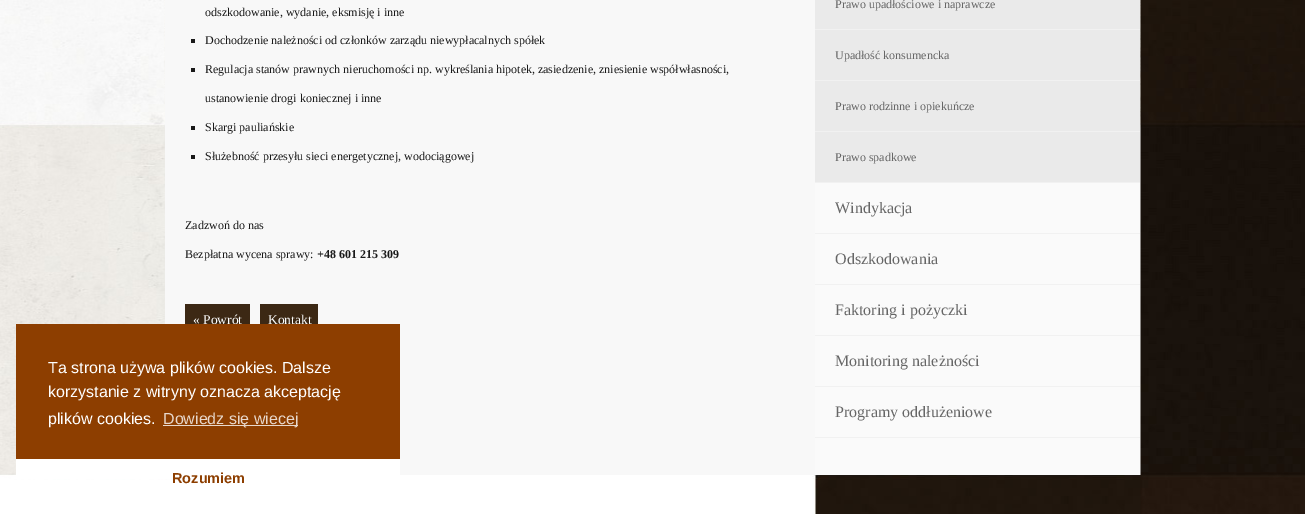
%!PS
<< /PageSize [1305 514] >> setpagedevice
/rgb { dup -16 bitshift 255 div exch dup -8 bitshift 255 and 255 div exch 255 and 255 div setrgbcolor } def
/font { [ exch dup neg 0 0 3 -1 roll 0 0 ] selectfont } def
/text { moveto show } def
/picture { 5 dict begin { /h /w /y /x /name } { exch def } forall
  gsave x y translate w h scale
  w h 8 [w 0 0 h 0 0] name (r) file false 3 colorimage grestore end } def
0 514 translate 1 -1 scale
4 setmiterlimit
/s1 { /LiberationSerif-Regular 12 font 16#191919 rgb } def
/s2 { /LiberationSerif-Bold 12 font 16#191919 rgb } def
/s3 { /LiberationSerif-Regular 12 font 16#666666 rgb } def
/s4 { /LiberationSerif-Regular 16 font 16#666666 rgb } def
/s5 { /LiberationSerif-Regular 13.5 font 16#FFFFFF rgb } def
/s6 { /LiberationSans-Regular 16 font 16#FFFFFF rgb } def
/s7 { /LiberationSans-Regular 16 font 16#E8D8CC rgb } def
/s8 { /LiberationSans-Bold 14.5 font 16#8D3E00 rgb } def
16#FFFFFF rgb
0 0 1305 514 rectfill
(pic1.raw) 0 0 1305 514 picture
16#F8F8F8 rgb
165 0 650 475 rectfill
s1
(odszkodowanie, wydanie, eksmisję i inne) 205 16 text
191 39 4 4 rectfill
(Dochodzenie należności od członków zarządu niewypłacalnych spółek) 205 44 text
191 68 4 4 rectfill
(Regulacja stanów prawnych nieruchomości np. wykreślania hipotek, zasiedzenie, zniesienie współwłasności,) 205 73 text
(ustanowienie drogi koniecznej i inne) 205 102 text
191 126 4 4 rectfill
(Skargi pauliańskie) 205 131 text
191 155 4 4 rectfill
(Służebność przesyłu sieci energetycznej, wodociągowej) 205 160 text
(Zadzwoń do nas) 185 229 text
(Bezpłatna wycena sprawy:) 185 258 text
s2
(+48 601 215 309) 317 258 text
16#FAFAFA rgb
815 183 325 292 rectfill
16#EAEAEA rgb
815 0 325 29 rectfill
16#F1F1F1 rgb
815 29 325 1 rectfill
s3
(Prawo upadłościowe i naprawcze) 835 8 text
16#EAEAEA rgb
815 30 325 50 rectfill
16#F1F1F1 rgb
815 80 325 1 rectfill
s3
(Upadłość konsumencka) 835 59 text
16#EAEAEA rgb
815 81 325 50 rectfill
16#F1F1F1 rgb
815 131 325 1 rectfill
s3
(Prawo rodzinne i opiekuńcze) 835 110 text
16#EAEAEA rgb
815 132 325 50 rectfill
16#F1F1F1 rgb
815 182 325 1 rectfill
s3
(Prawo spadkowe) 835 161 text
16#F1F1F1 rgb
815 233 325 1 rectfill
s4
(Windykacja) 835 213 text
16#F1F1F1 rgb
815 284 325 1 rectfill
s4
(Odszkodowania) 835 264 text
16#F1F1F1 rgb
815 335 325 1 rectfill
s4
(Faktoring i pożyczki) 835 315 text
16#F1F1F1 rgb
815 386 325 1 rectfill
s4
(Monitoring należności) 835 366 text
16#F1F1F1 rgb
815 437 325 1 rectfill
s4
(Programy oddłużeniowe) 835 417 text
16#3C2814 rgb
185 304 65 20 rectfill
s5
(« Powrót) 193 324 text
16#3C2814 rgb
260 304 58 20 rectfill
s5
(Kontakt) 268 324 text
16#8D3E00 rgb
16 324 384 135 rectfill
s6
(Ta strona używa plików cookies. Dalsze) 48 373 text
(korzystanie z witryny oznacza akceptację) 48 397 text
(plików cookies.) 48 424 text
16#E8D8CC rgb
163 425 135 1 rectfill
(Dowiedz się wiecej) 163 424 text
16#FFFFFF rgb
16 459 384 20 rectfill
s8
(Rozumiem) 172 483 text
showpage
